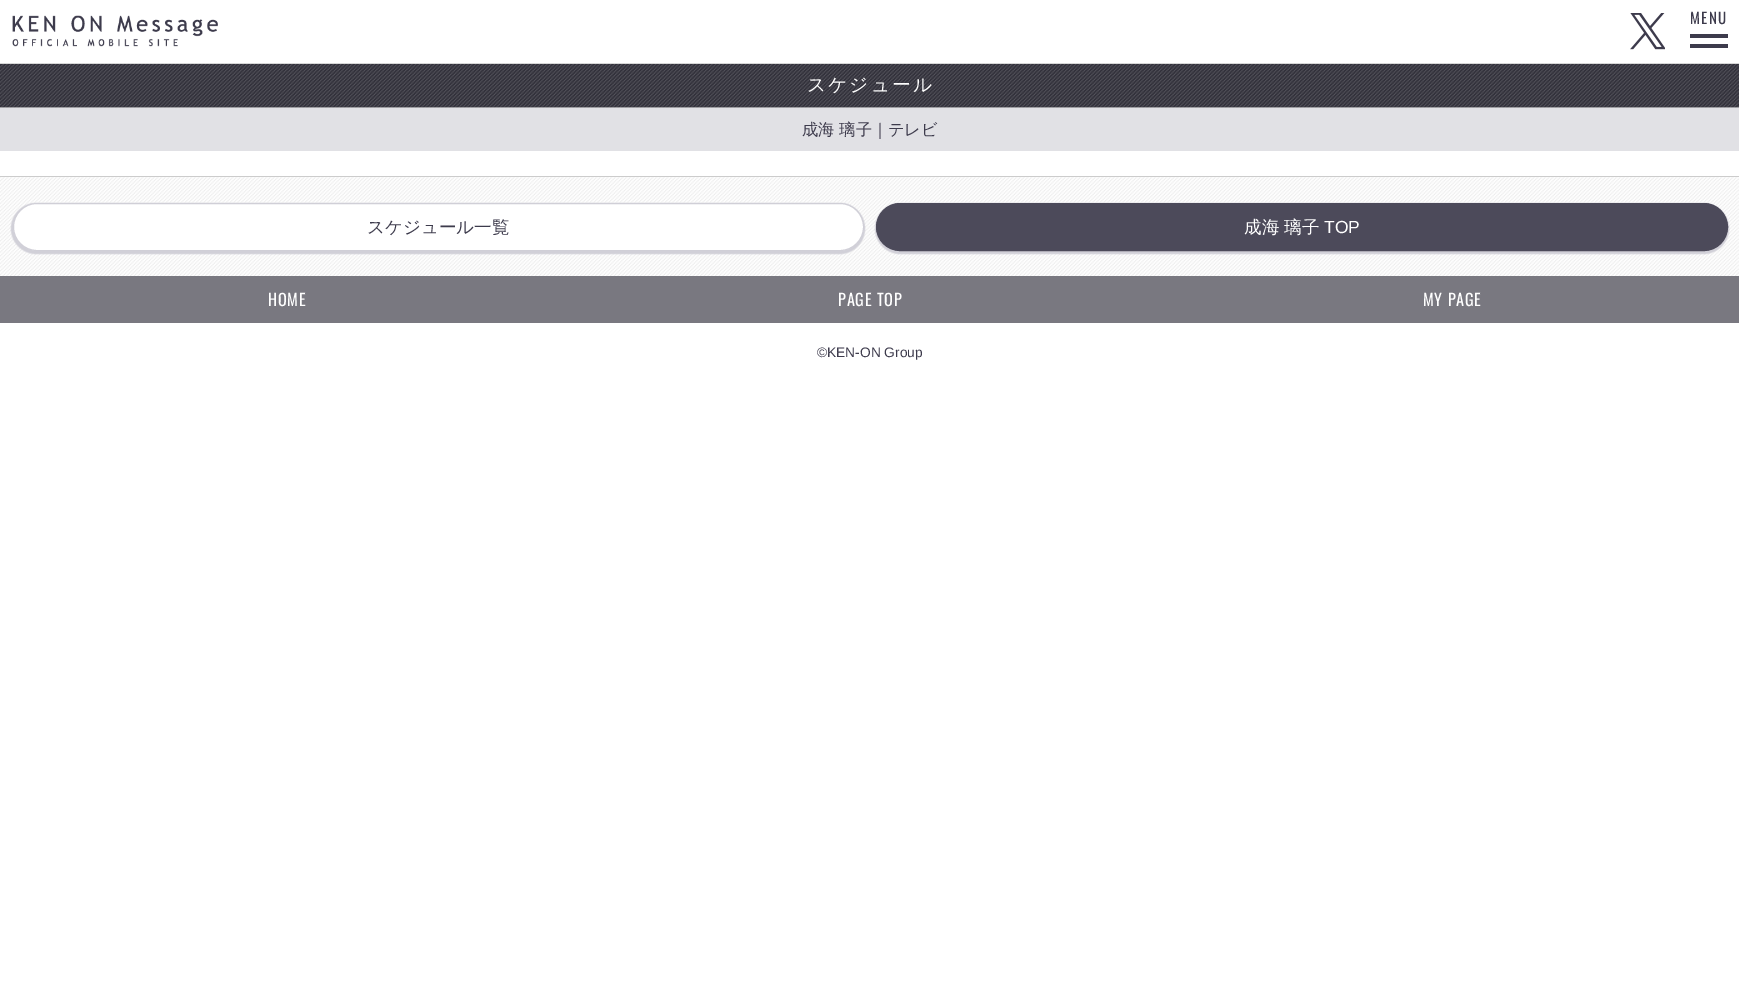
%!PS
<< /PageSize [1739 987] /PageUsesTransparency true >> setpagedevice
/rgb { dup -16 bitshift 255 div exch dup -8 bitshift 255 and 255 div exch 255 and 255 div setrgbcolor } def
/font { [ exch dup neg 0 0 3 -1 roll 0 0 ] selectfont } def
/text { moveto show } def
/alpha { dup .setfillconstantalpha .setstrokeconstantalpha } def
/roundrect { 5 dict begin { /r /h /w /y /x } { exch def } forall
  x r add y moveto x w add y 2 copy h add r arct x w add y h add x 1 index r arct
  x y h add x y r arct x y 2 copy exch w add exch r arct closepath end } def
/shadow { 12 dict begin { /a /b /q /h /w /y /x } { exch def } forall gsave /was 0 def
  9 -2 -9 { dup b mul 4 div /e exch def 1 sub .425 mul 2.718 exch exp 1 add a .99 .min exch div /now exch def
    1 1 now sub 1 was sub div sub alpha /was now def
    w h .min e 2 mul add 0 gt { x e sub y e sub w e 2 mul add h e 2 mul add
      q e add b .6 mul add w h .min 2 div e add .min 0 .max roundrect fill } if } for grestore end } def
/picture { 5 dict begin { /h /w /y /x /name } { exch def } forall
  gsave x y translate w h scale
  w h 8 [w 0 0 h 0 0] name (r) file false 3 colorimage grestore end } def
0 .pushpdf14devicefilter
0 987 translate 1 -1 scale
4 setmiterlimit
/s1 { /WenQuanYiZenHei-Medium 16.25 font 16#3D3B4C rgb } def
/s2 { /WenQuanYiZenHei-Medium 17.5 font 16#3D3B4C rgb } def
/s3 { /WenQuanYiZenHei-Medium 17.5 font 16#FFFFFF rgb } def
/s4 { /LiberationSans-Regular 17.5 font 16#FFFFFF rgb } def
/s5 { /LiberationSans-Regular 13.75 font 16#3D3B4C rgb } def
16#FFFFFF rgb
0 0 1739 987 rectfill
16#D7D7D7 rgb
0 63 1739 1 rectfill
(pic1.raw) 12 15 206 32 picture
(pic2.raw) 1630 13 35 37 picture
/Oswald-Regular 15 font
16#3D3B4C rgb
1690 24 moveto 1.5 0 (MENU) ashow
1690 34 38 4 rectfill
1690 44 38 4 rectfill
(pic3.raw) 0 64 1739 44 picture
/WenQuanYiZenHei-Medium 18.75 font
16#FFFFFF rgb
807 91 moveto 2 0 (スケジュール) ashow
16#E1E1E5 rgb
0 108 1739 43 rectfill
s1
(成海 璃子｜テレビ) 802 135 text
(pic4.raw) 0 177 1739 99 picture
16#CCCCCC rgb
0 176 1739 1 rectfill
16#D0CFD7 rgb
11 203 854 51 25.5 0.5 1 shadow
16#FFFFFF rgb
13.5 203.5 850 47 23.5 roundrect gsave fill grestore
16#D0CFD7 rgb
stroke
s2
(スケジュール一覧) 367 233 text
16#D0CFD7 rgb
875 203 854 51 25.5 0.5 1 shadow
16#4C4A5A rgb
876.5 203.5 851 47 23.5 roundrect gsave fill grestore
stroke
s3
(成海 璃子) 1244 233 text
s4
(TOP) 1324 233 text
16#797880 rgb
0 276 1739 47 rectfill
/Oswald-Regular 16.25 font
16#FFFFFF rgb
268 306 moveto 0.75 0 (HOME) ashow
838 306 moveto 0.75 0 (PAGE TOP) ashow
1423 306 moveto 0.75 0 (MY PAGE) ashow
s5
(©KEN-ON Group) 817 357 text
.poppdf14devicefilter showpage
